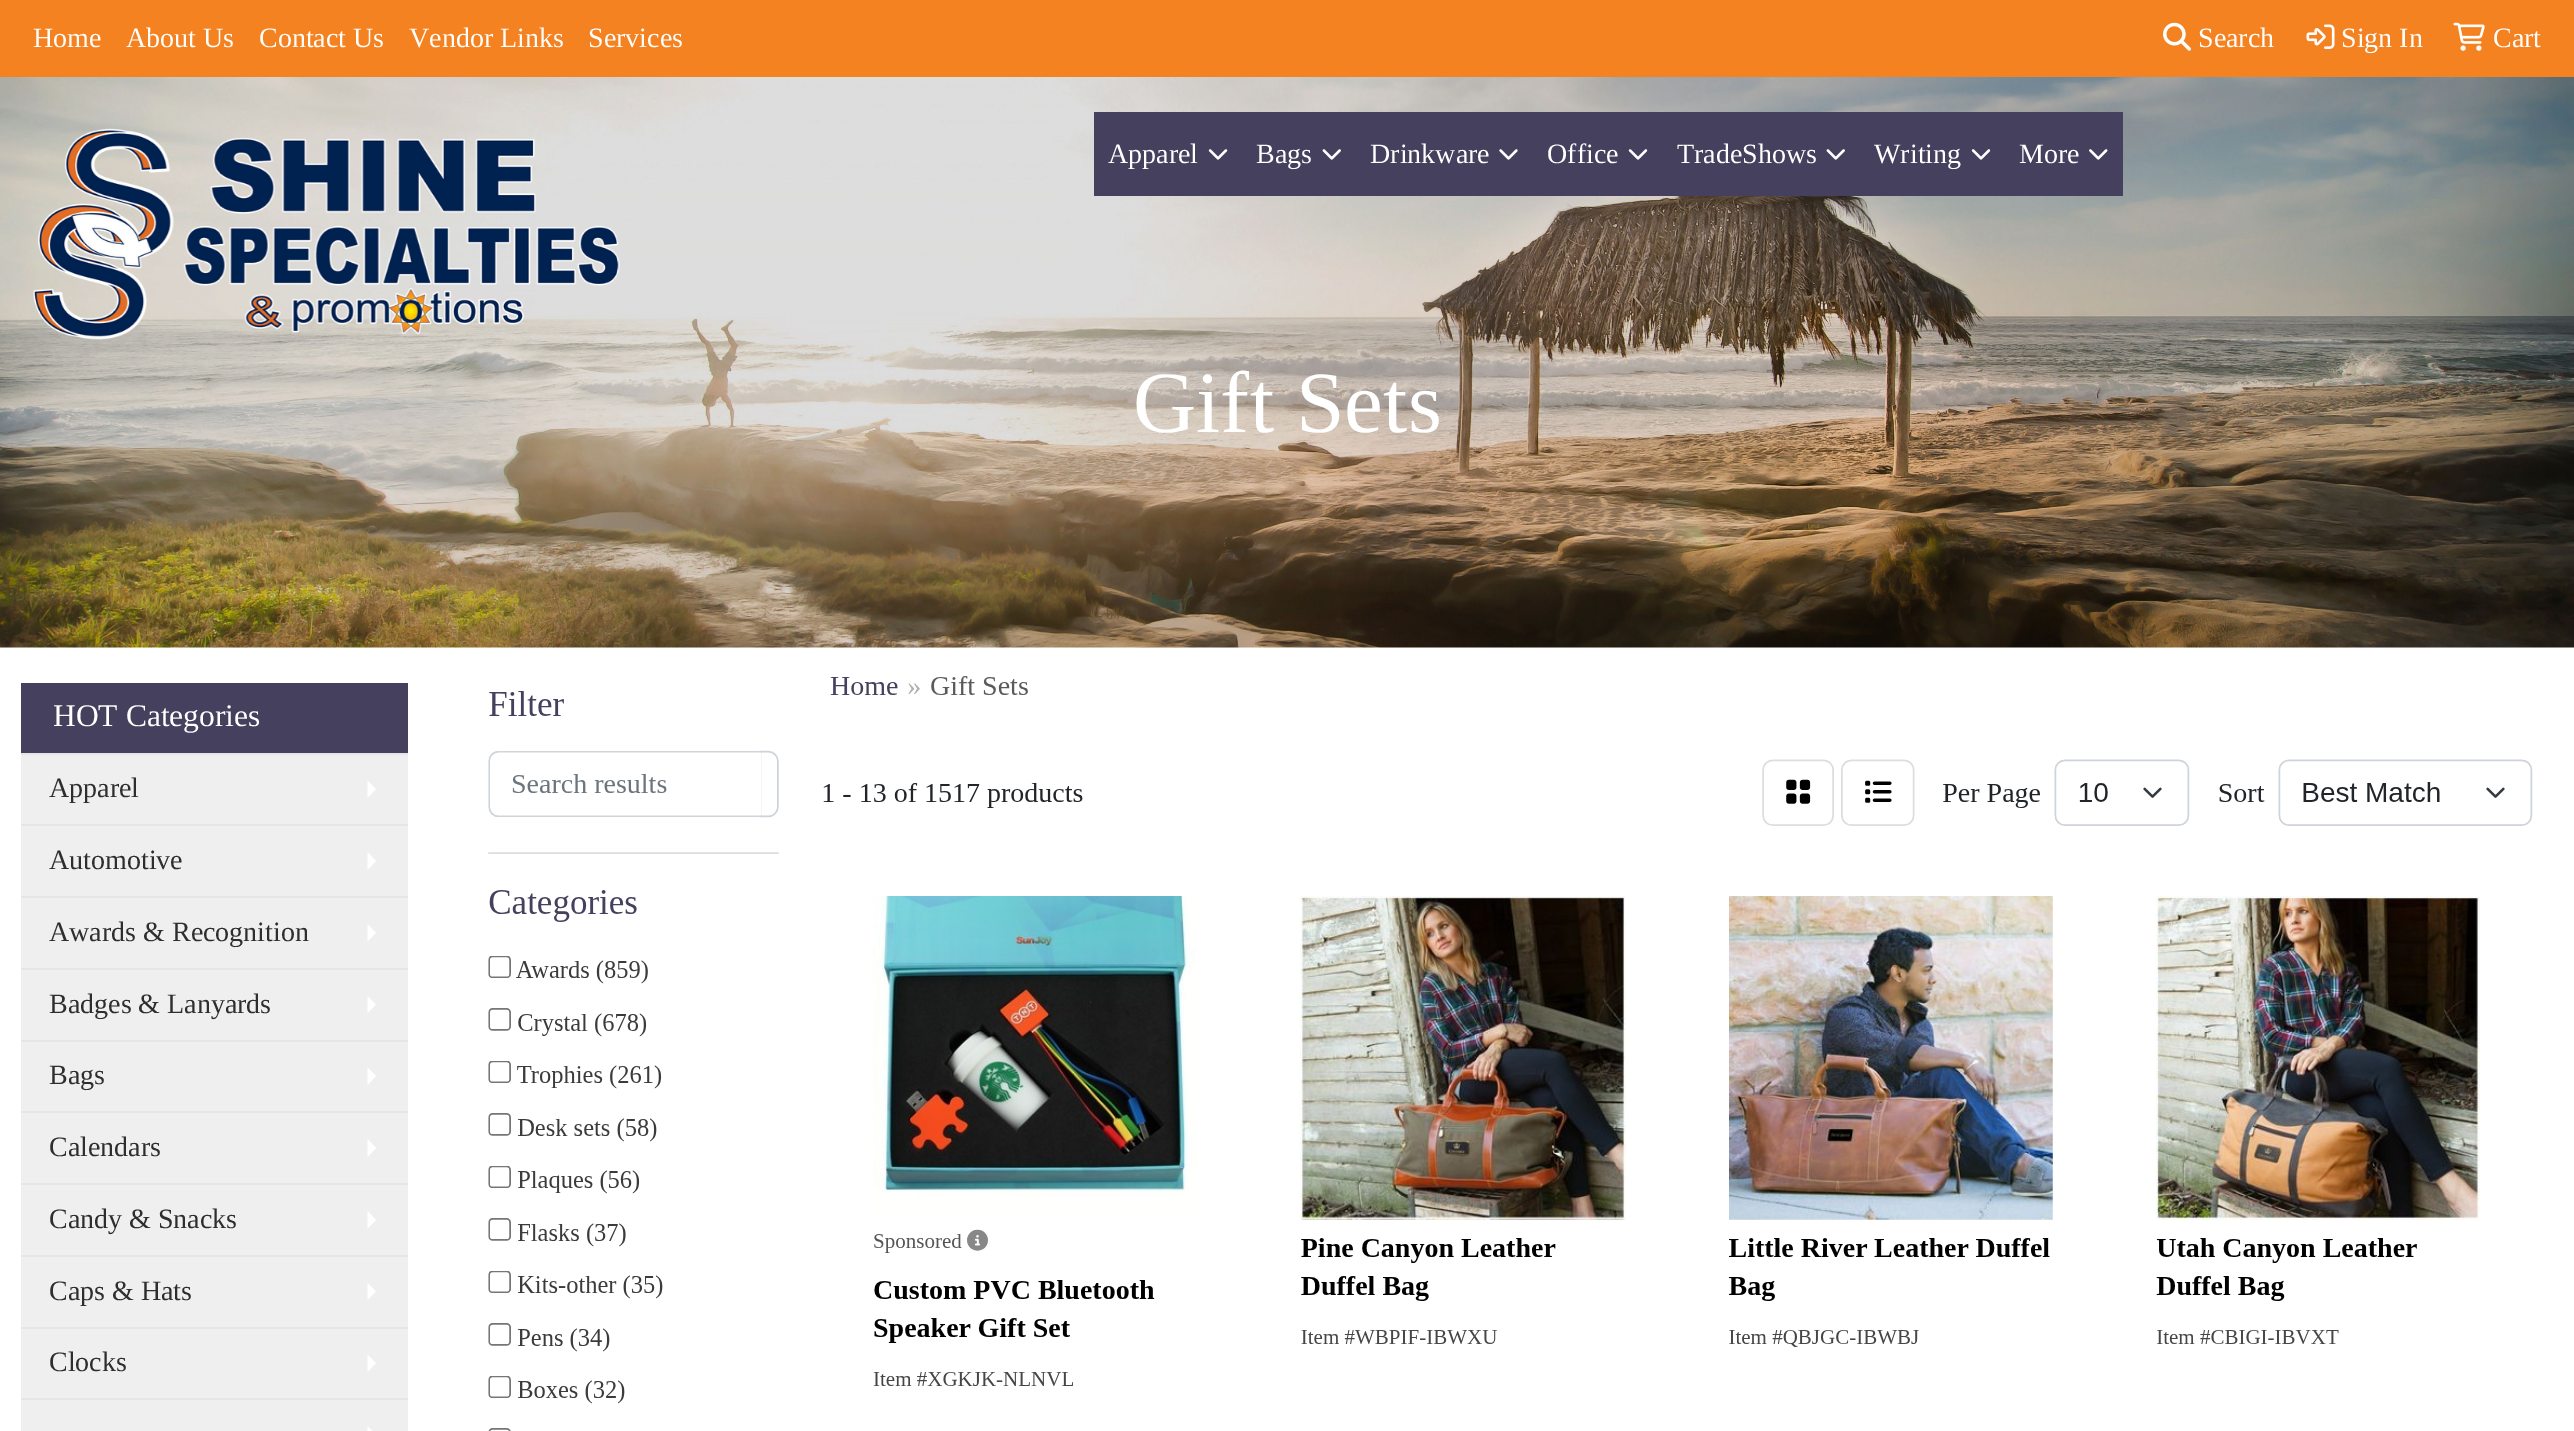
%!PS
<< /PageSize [2574 1431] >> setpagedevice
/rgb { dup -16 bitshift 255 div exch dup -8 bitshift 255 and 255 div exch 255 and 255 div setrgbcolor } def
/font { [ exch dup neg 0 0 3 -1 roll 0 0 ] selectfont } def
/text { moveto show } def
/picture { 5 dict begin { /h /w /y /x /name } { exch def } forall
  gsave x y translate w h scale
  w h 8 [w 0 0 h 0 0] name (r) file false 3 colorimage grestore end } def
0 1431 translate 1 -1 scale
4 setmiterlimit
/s1 { /LiberationSerif-Regular 28 font 16#FFFFFF rgb } def
/s2 { /LiberationSerif-Regular 87.5 font 16#FFFFFF rgb } def
/s3 { /LiberationSerif-Regular 31.5 font 16#FFFFFF rgb } def
/s4 { /LiberationSerif-Regular 28 font 16#2E2E2E rgb } def
16#FFFFFF rgb
0 0 2574 1431 rectfill
16#F58220 rgb
0 0 2574 77 rectfill
s1
(Home) 33 47 text
(About Us) 126 47 text
(Contact Us) 259 47 text
(Vendor Links) 409 47 text
(Services) 588 47 text
(pic1.raw) 2163 22 28 29 picture
(Search) 2198 47 text
(pic2.raw) 2306 24 29 25 picture
(Sign In) 2341 47 text
(pic3.raw) 2453 22 32 29 picture
(Cart) 2493 47 text
(pic9.raw) 0 77 2574 571 picture
(pic4.raw) 33 128 587 212 picture
16#44405D rgb
1094 112 1029 84 rectfill
s1
(Apparel) 1108 163 text
(pic5.raw) 1208 149 20 11 picture
(Bags) 1256 163 text
(pic6.raw) 1322 149 19 11 picture
(Drinkware) 1370 163 text
(pic7.raw) 1499 149 19 11 picture
(Office) 1547 163 text
(pic5.raw) 1628 149 20 11 picture
(TradeShows) 1677 163 text
(pic6.raw) 1826 149 19 11 picture
(Writing) 1874 163 text
(pic5.raw) 1971 149 20 11 picture
(More) 2019 163 text
(pic8.raw) 2089 149 19 11 picture
s2
(Gift Sets) 1133 432 text
16#44405D rgb
21 683 387 70 rectfill
s3
(HOT Categories) 53 726 text
16#EFEFEF rgb
21 755 387 69 rectfill
16#E5E5E5 rgb
21 753 387 2 rectfill
s4
(Apparel) 49 797 text
16#FFFFFF rgb
367.5 798 moveto 367.5 780.5 lineto 376 789 lineto closepath fill
16#EFEFEF rgb
21 826 387 70 rectfill
16#E5E5E5 rgb
21 824 387 2 rectfill
s4
(Automotive) 49 869 text
16#FFFFFF rgb
367.5 870 moveto 367.5 852 lineto 376 861 lineto closepath fill
16#EFEFEF rgb
21 898 387 70 rectfill
16#E5E5E5 rgb
21 896 387 2 rectfill
s4
(Awards & Recognition) 49 941 text
16#FFFFFF rgb
367.5 941.5 moveto 367.5 924 lineto 376 933 lineto closepath fill
16#EFEFEF rgb
21 970 387 70 rectfill
16#E5E5E5 rgb
21 968 387 2 rectfill
s4
(Badges & Lanyards) 49 1013 text
16#FFFFFF rgb
367.5 1013 moveto 367.5 996 lineto 376 1004.5 lineto closepath fill
16#EFEFEF rgb
21 1042 387 69 rectfill
16#E5E5E5 rgb
21 1040 387 2 rectfill
s4
(Bags) 49 1084 text
16#FFFFFF rgb
367.5 1085 moveto 367.5 1067.5 lineto 376 1076 lineto closepath fill
16#EFEFEF rgb
21 1113 387 70 rectfill
16#E5E5E5 rgb
21 1111 387 2 rectfill
s4
(Calendars) 49 1156 text
16#FFFFFF rgb
367.5 1157 moveto 367.5 1139 lineto 376 1148 lineto closepath fill
16#EFEFEF rgb
21 1185 387 70 rectfill
16#E5E5E5 rgb
21 1183 387 2 rectfill
s4
(Candy & Snacks) 49 1228 text
16#FFFFFF rgb
367.5 1228.5 moveto 367.5 1211 lineto 376 1220 lineto closepath fill
16#EFEFEF rgb
21 1257 387 70 rectfill
16#E5E5E5 rgb
21 1255 387 2 rectfill
s4
(Caps & Hats) 49 1300 text
16#FFFFFF rgb
367.5 1300 moveto 367.5 1283 lineto 376 1291.5 lineto closepath fill
16#EFEFEF rgb
21 1329 387 69 rectfill
16#E5E5E5 rgb
21 1327 387 2 rectfill
s4
(Clocks) 49 1371 text
16#FFFFFF rgb
367.5 1372 moveto 367.5 1354.5 lineto 376 1363 lineto closepath fill
16#EFEFEF rgb
21 1400 387 31 rectfill
16#E5E5E5 rgb
21 1398 387 2 rectfill
16#FFFFFF rgb
367.5 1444 moveto 367.5 1426 lineto 376 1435 lineto closepath fill
(pic10.raw) 488 676 2045 755 picture
showpage
